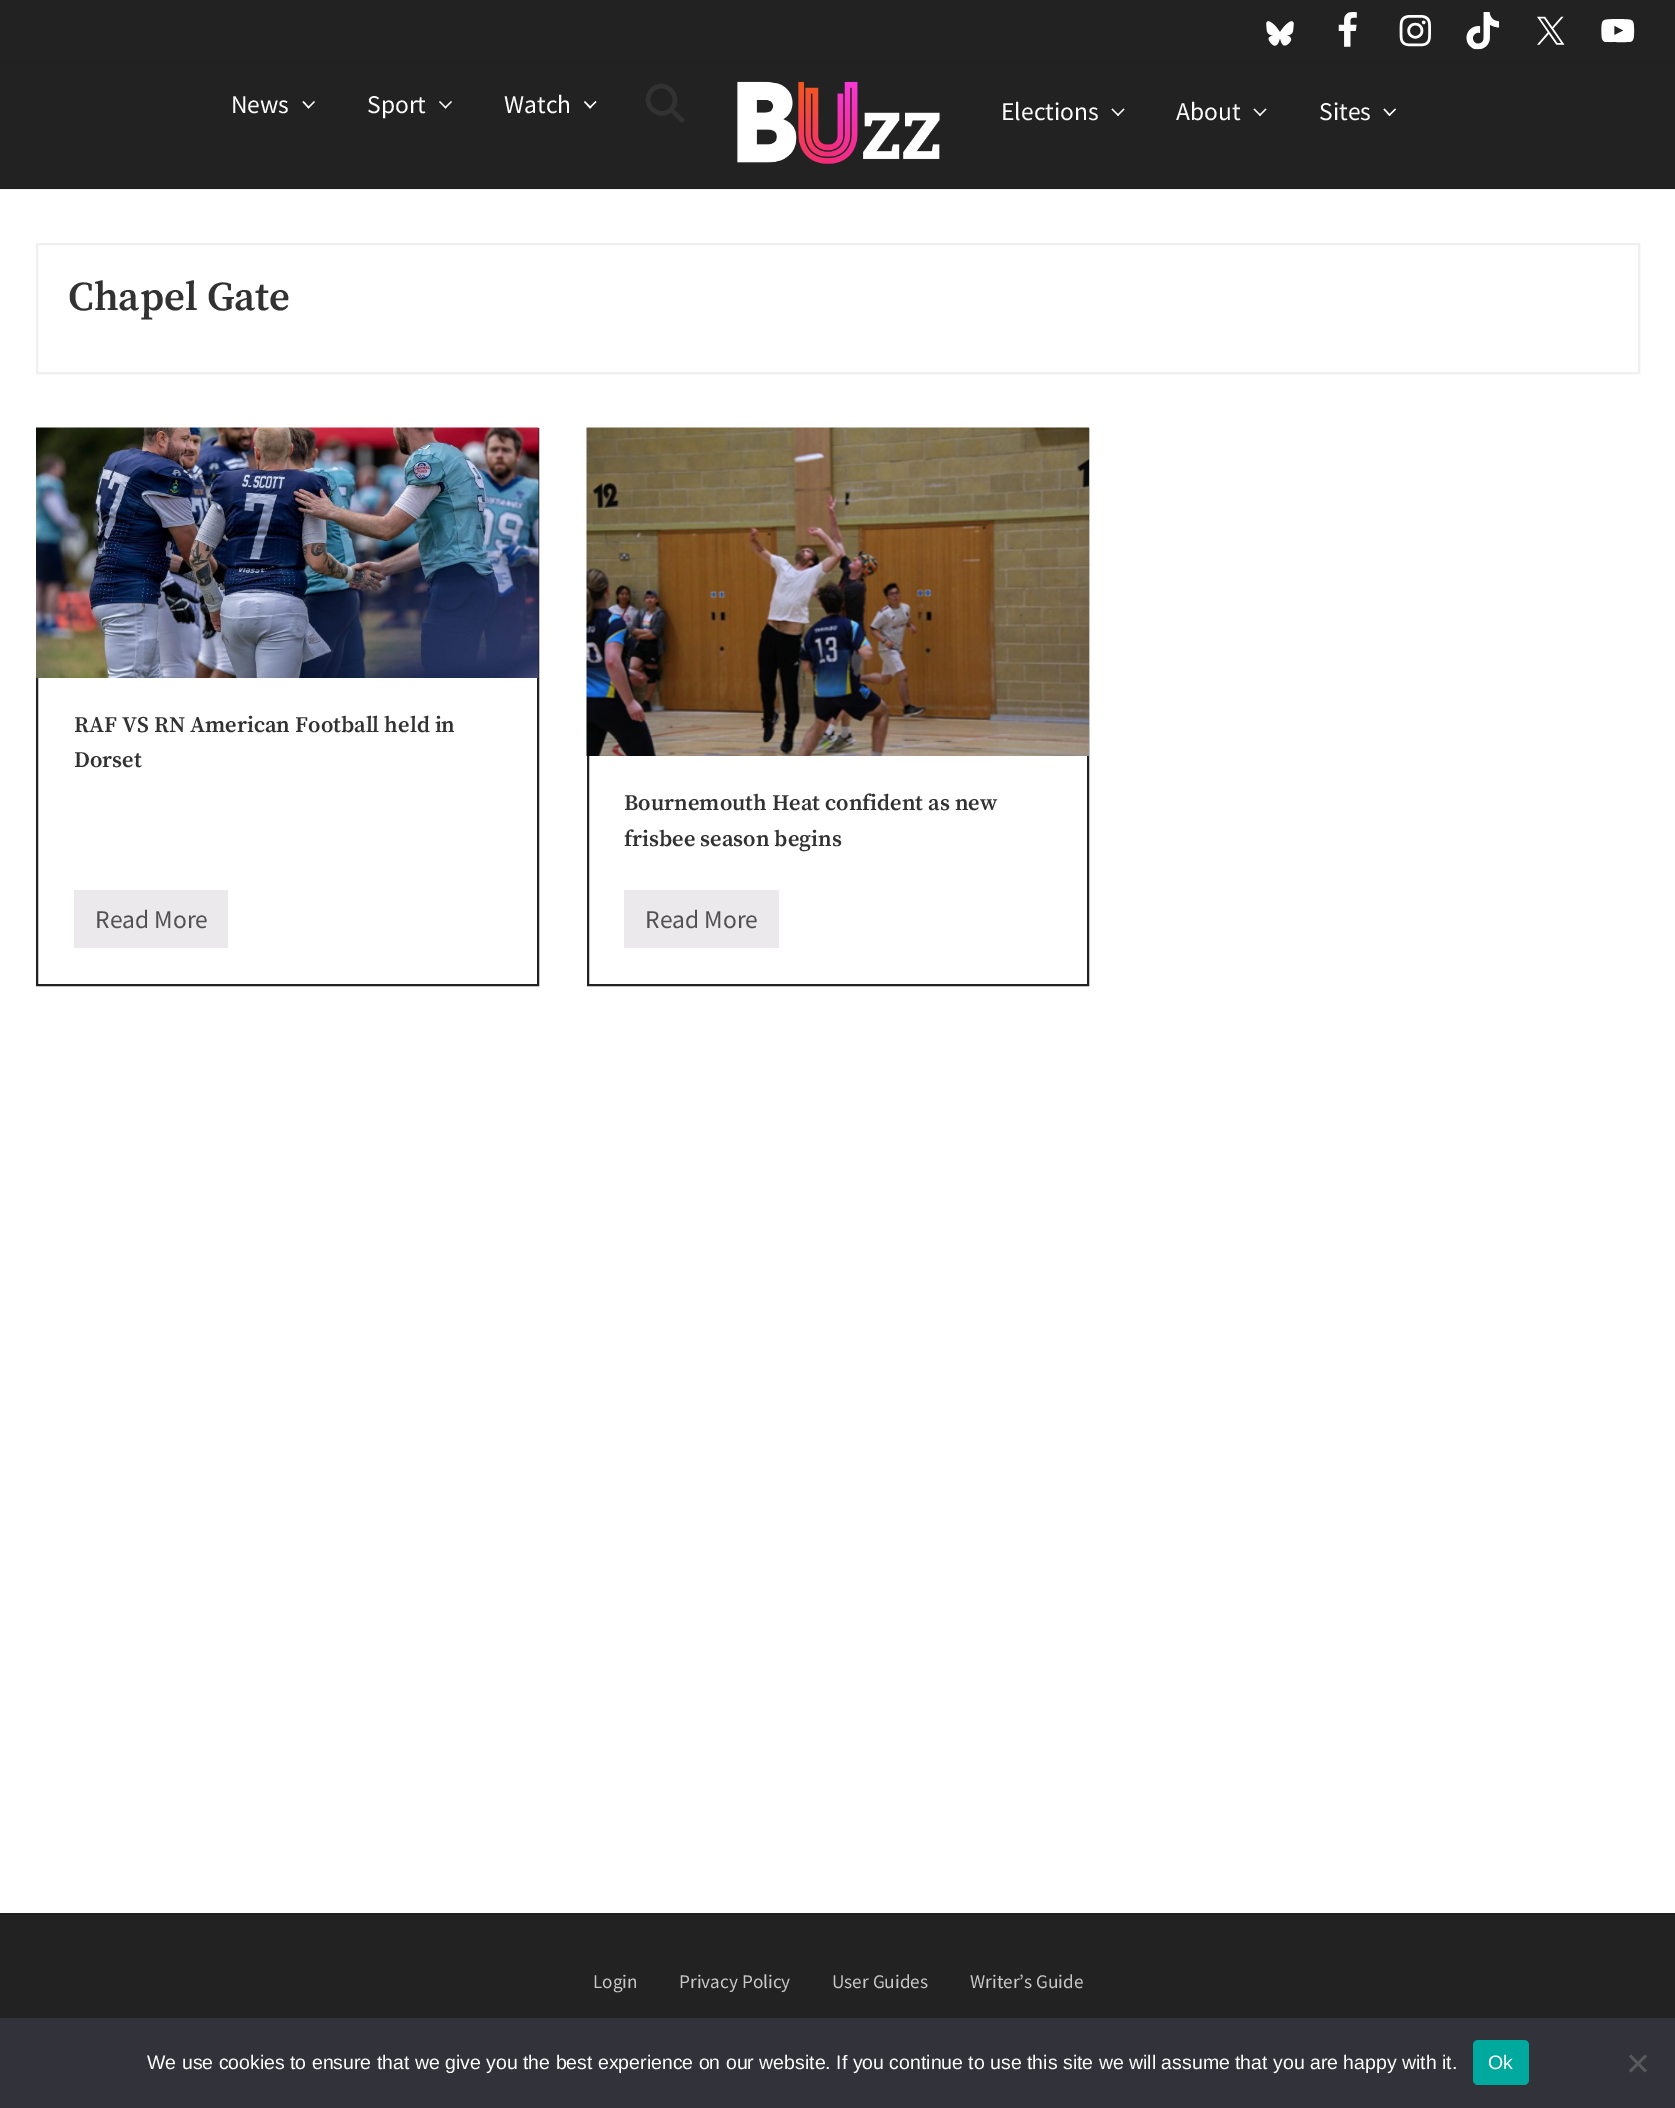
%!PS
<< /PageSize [1675 2108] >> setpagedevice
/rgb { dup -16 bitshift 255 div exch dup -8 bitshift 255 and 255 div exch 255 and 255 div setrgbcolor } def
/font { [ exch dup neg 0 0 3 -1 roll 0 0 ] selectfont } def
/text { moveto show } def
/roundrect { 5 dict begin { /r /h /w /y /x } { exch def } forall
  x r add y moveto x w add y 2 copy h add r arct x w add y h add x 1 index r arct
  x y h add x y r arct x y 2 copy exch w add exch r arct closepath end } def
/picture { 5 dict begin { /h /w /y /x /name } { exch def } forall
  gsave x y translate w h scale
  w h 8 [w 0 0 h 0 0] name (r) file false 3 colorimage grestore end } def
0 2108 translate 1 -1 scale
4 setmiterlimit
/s1 { /SourceSansPro-Regular 25.5 font 16#FFFFFF rgb } def
/s2 { /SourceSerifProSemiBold-SemiBold 40.75 font 16#323232 rgb } def
/s3 { /SourceSerifProSemiBold-SemiBold 22.4 font 16#323232 rgb } def
/s4 { /SourceSansPro-Regular 25.5 font 16#515151 rgb } def
/s5 { /SourceSansPro-Regular 19.25 font 16#C8C8C8 rgb } def
/s6 { /LiberationSans-Regular 19.5 font 16#FFFFFF rgb } def
16#FFFFFF rgb
0 0 1675 2108 rectfill
16#F2F2F2 rgb
0 189 1675 1 rectfill
16#222222 rgb
0 0 1675 62 rectfill
16#202020 rgb
0 62 1675 1 rectfill
(pic1.raw) 1266 21 28 25 picture
(pic2.raw) 1338 12 19 35 picture
(pic3.raw) 1399 15 32 32 picture
(pic4.raw) 1466 12 34 38 picture
(pic5.raw) 1537 16 28 29 picture
(pic6.raw) 1601 19 34 24 picture
16#222222 rgb
0 63 1675 125 rectfill
16#202020 rgb
0 188 1675 1 rectfill
s1
(News) 231 113 text
314 101 moveto 315 102 lineto 308.5 108.5 lineto 307.5 107.5 lineto closepath fill
303.5 101 moveto 309.5 107.5 lineto 308.5 108.5 lineto 302.5 102 lineto closepath fill
(Sport) 367 113 text
451 101 moveto 452 102 lineto 445.5 108.5 lineto 444.5 107.5 lineto closepath fill
440 101 moveto 446.5 107.5 lineto 445.5 108.5 lineto 439 102 lineto closepath fill
(Watch) 504 113 text
595.5 101 moveto 596.5 102 lineto 590 108.5 lineto 589 107.5 lineto closepath fill
585 101 moveto 591.5 107.5 lineto 590 108.5 lineto 584 102 lineto closepath fill
16#323232 rgb
4.5 setlinewidth
652 90 moveto 664.5 77.5 683.5 96.5 671 109.5 curveto 658.5 122 639.5 103 652 90 curveto closepath stroke
671 112.5 moveto 674 109.5 lineto 685 120 lineto 681.5 123 lineto closepath fill
(pic7.raw) 737 81 203 83 picture
s1
(Elections) 1001 120 text
1123.5 108.5 moveto 1124.5 109.5 lineto 1118 116 lineto 1117 115 lineto closepath fill
1112.5 108.5 moveto 1119 115 lineto 1118 116 lineto 1111.5 109.5 lineto closepath fill
(About) 1176 120 text
1265.5 108.5 moveto 1266.5 109.5 lineto 1260 116 lineto 1259 115 lineto closepath fill
1254.5 108.5 moveto 1261 115 lineto 1260 116 lineto 1253.5 109.5 lineto closepath fill
(Sites) 1319 120 text
1395 108.5 moveto 1396 109.5 lineto 1389.5 116 lineto 1388.5 115 lineto closepath fill
1384.5 108.5 moveto 1390.5 115 lineto 1389.5 116 lineto 1383.5 109.5 lineto closepath fill
16#EFEFEF rgb
2 setlinewidth
37 244 1602 129 rectstroke
s2
(Chapel Gate) 68 310 text
16#222222 rgb
37 429 501 556 rectstroke
(pic8.raw) 36 427 503 251 picture
s3
(RAF VS RN American Football held in) 74 732 text
(Dorset) 74 767 text
16#EBE9EB rgb
74 890 154 58 rectfill
s4
(Read More) 95 928 text
16#222222 rgb
588 429 500 556 rectstroke
(pic9.raw) 586 427 503 329 picture
s3
(Bournemouth Heat confident as new) 624 810 text
(frisbee season begins) 624 846 text
16#EBE9EB rgb
624 890 155 58 rectfill
s4
(Read More) 645 928 text
16#222222 rgb
0 1915 1675 103 rectfill
16#1F1F1F rgb
0 1913 1675 2 rectfill
s5
(Login) 593 1988 text
(Privacy Policy) 679 1988 text
(User Guides) 832 1988 text
(Writer’s Guide) 970 1988 text
16#32323A rgb
0 2018 1675 90 rectfill
s6
(We use cookies to ensure that we give you the best experience on our website. If you continue to use this site we will assume that you are happy with it.) 147 2069 text
16#00A99D rgb
1473 2040 56 45 5 roundrect fill
s6
(Ok) 1488 2069 text
16#59595D rgb
1645 2054.5 moveto 1647 2056.5 lineto 1631 2072.5 lineto 1629 2070.5 lineto closepath fill
1629 2056.5 moveto 1631 2054.5 lineto 1647 2070.5 lineto 1645 2072.5 lineto closepath fill
showpage
